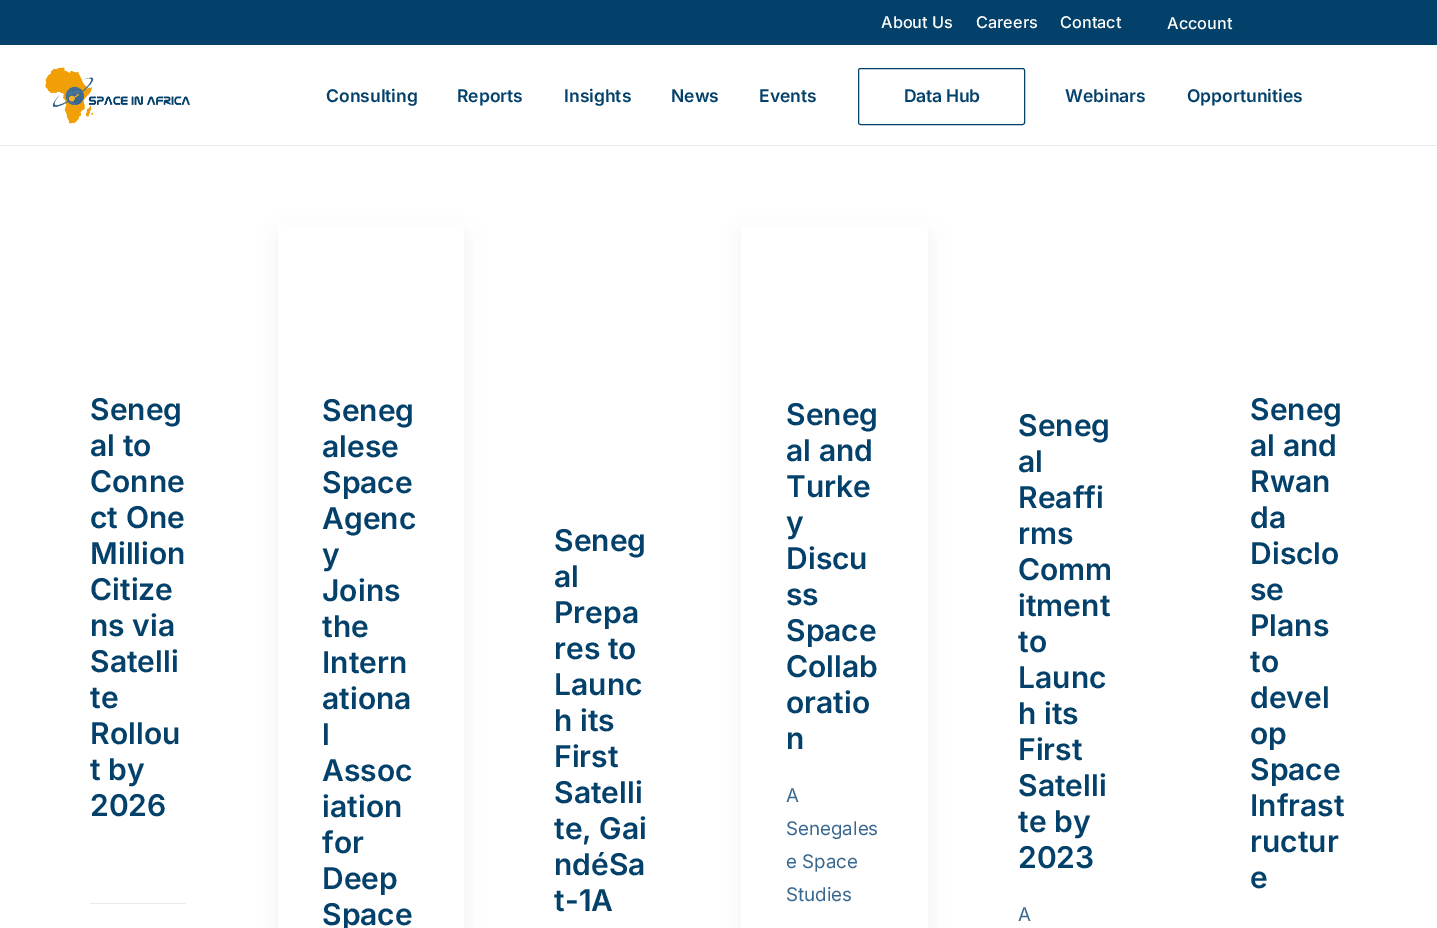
%!PS
<< /PageSize [1437 928] /PageUsesTransparency true >> setpagedevice
/rgb { dup -16 bitshift 255 div exch dup -8 bitshift 255 and 255 div exch 255 and 255 div setrgbcolor } def
/font { [ exch dup neg 0 0 3 -1 roll 0 0 ] selectfont } def
/text { moveto show } def
/alpha { dup .setfillconstantalpha .setstrokeconstantalpha } def
/roundrect { 5 dict begin { /r /h /w /y /x } { exch def } forall
  x r add y moveto x w add y 2 copy h add r arct x w add y h add x 1 index r arct
  x y h add x y r arct x y 2 copy exch w add exch r arct closepath end } def
/shadow { 12 dict begin { /a /b /q /h /w /y /x } { exch def } forall gsave /was 0 def
  9 -2 -9 { dup b mul 4 div /e exch def 1 sub .425 mul 2.718 exch exp 1 add a .99 .min exch div /now exch def
    1 1 now sub 1 was sub div sub alpha /was now def
    w h .min e 2 mul add 0 gt { x e sub y e sub w e 2 mul add h e 2 mul add
      q e add b .6 mul add w h .min 2 div e add .min 0 .max roundrect fill } if } for grestore end } def
/picture { 5 dict begin { /h /w /y /x /name } { exch def } forall
  gsave x y translate w h scale
  w h 8 [w 0 0 h 0 0] name (r) file false 3 colorimage grestore end } def
0 .pushpdf14devicefilter
0 928 translate 1 -1 scale
4 setmiterlimit
/s1 { /Inter-Medium 16.25 font 16#FFFFFF rgb } def
/s2 { /Inter-SemiBold 17.5 font 16#03416A rgb } def
/s3 { /Inter-SemiBold 30 font 16#03416A rgb } def
/s4 { /Inter-Regular 18.75 font 16#38678F rgb } def
16#FFFFFF rgb
0 0 1437 928 rectfill
16#03416A rgb
0 0 1437 45 rectfill
s1
(About Us) 881 28 text
(Careers) 976 28 text
(Contact) 1060 28 text
(Account) 1167 29 text
(pic1.raw) 45 67 145 57 picture
s2
(Consulting) 326 102 text
(Reports) 457 102 text
(Insights) 564 102 text
(News) 671 102 text
(Events) 759 102 text
858.5 68.5 166 56 2 roundrect stroke
904 102 moveto -0.25 0 (Data Hub) ashow
(Webinars) 1065 102 text
(Opportunities) 1187 102 text
16#EBEBEB rgb
0 145 1437 1 rectfill
s3
(Seneg) 90 420 text
(al to) 90 456 text
(Conne) 90 492 text
(ct One) 90 528 text
(Million) 90 564 text
(Citize) 90 600 text
(ns via) 90 636 text
(Satelli) 90 672 text
(te) 90 708 text
(Rollou) 90 744 text
(t by) 90 780 text
(2026) 90 816 text
16#EAEAEA rgb
90 903 96 1 rectfill
16#000000 rgb
278 234 186 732 0 12.5 0.05 shadow
16#FFFFFF rgb
278 225 186 703 rectfill
s3
(Seneg) 322 421 text
(alese) 322 457 text
(Space) 322 493 text
(Agenc) 322 529 text
(y) 322 565 text
(Joins) 322 601 text
(the) 322 637 text
(Intern) 322 673 text
(ationa) 322 709 text
(l) 322 745 text
(Assoc) 322 781 text
(iation) 322 817 text
(for) 322 853 text
(Deep) 322 889 text
(Space) 322 925 text
(Seneg) 554 551 text
(al) 554 587 text
(Prepa) 554 623 text
(res to) 554 659 text
(Launc) 554 695 text
(h its) 554 731 text
(First) 554 767 text
(Satelli) 554 803 text
(te, Gai) 554 839 text
(ndéSa) 554 875 text
(t-1A) 554 911 text
16#000000 rgb
741 234 187 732 0 12.5 0.05 shadow
16#FFFFFF rgb
741 225 187 703 rectfill
s3
(Seneg) 786 425 text
(al and) 786 461 text
(Turke) 786 497 text
(y) 786 533 text
(Discu) 786 569 text
(ss) 786 605 text
(Space) 786 641 text
(Collab) 786 677 text
(oratio) 786 713 text
(n) 786 749 text
s4
(A) 786 802 text
(Senegales) 786 835 text
(e Space) 786 868 text
(Studies) 786 901 text
s3
(Seneg) 1018 436 text
(al) 1018 472 text
(Reaffi) 1018 508 text
(rms) 1018 544 text
(Comm) 1018 580 text
(itment) 1018 616 text
(to) 1018 652 text
(Launc) 1018 688 text
(h its) 1018 724 text
(First) 1018 760 text
(Satelli) 1018 796 text
(te by) 1018 832 text
(2023) 1018 868 text
s4
(A) 1018 921 text
s3
(Seneg) 1250 420 text
(al and) 1250 456 text
(Rwan) 1250 492 text
(da) 1250 528 text
(Disclo) 1250 564 text
(se) 1250 600 text
(Plans) 1250 636 text
(to) 1250 672 text
(devel) 1250 708 text
(op) 1250 744 text
(Space) 1250 780 text
(Infrast) 1250 816 text
(ructur) 1250 852 text
(e) 1250 888 text
.poppdf14devicefilter showpage
